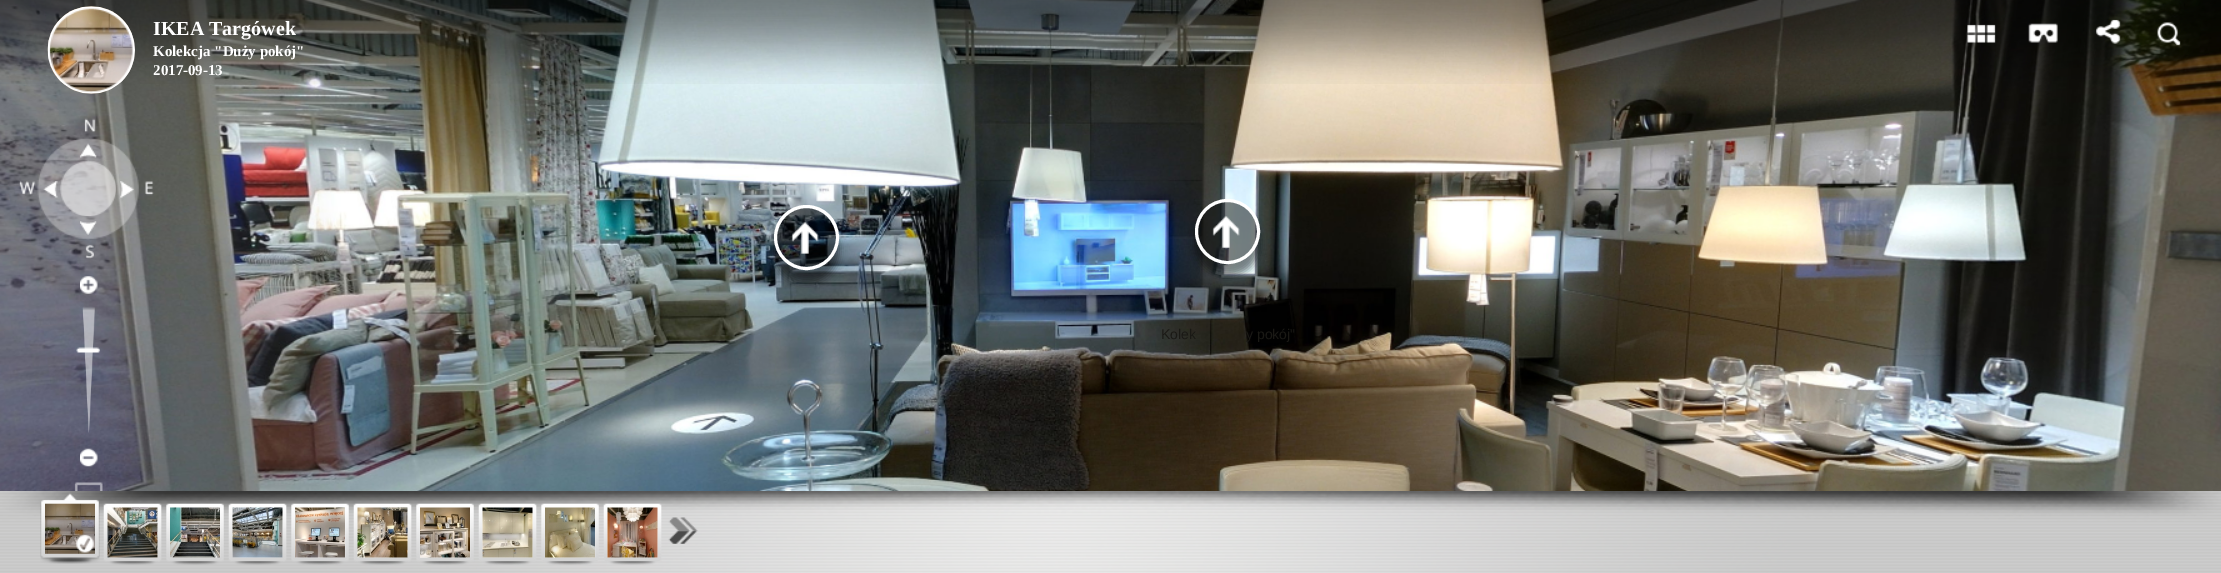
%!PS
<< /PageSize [2221 573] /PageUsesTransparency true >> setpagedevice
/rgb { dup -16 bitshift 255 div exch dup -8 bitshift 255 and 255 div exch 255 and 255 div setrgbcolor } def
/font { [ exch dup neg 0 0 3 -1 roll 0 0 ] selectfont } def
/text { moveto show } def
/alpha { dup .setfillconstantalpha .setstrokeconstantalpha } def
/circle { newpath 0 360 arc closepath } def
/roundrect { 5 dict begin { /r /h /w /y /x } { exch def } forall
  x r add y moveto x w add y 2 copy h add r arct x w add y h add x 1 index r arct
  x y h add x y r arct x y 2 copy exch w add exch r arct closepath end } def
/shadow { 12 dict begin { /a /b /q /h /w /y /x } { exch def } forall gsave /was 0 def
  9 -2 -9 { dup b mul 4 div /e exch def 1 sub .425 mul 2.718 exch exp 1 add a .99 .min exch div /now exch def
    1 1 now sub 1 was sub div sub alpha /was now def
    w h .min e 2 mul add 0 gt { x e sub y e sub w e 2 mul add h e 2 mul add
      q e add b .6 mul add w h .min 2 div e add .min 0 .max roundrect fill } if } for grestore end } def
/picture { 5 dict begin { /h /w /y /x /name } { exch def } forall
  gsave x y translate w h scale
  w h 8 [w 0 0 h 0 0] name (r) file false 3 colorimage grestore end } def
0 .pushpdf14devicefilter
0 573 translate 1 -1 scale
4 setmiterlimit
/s1 { /LiberationSerif-Bold 20 font 16#FFFFFF rgb } def
/s2 { /LiberationSerif-Bold 15 font 16#FFFFFF rgb } def
/s3 { /LiberationSans-Regular 14 font 16#1A1915 rgb } def
16#FFFFFF rgb
0 0 2221 573 rectfill
(pic1.raw) 0 0 2221 491 picture
(pic2.raw) 0 0 2221 84 picture
(pic3.raw) 47 6 88 88 picture
(pic4.raw) 47 6 88 88 picture
s1
(IKEA Targówek) 153 35 text
(pic5.raw) 1967 24 29 19 picture
(pic6.raw) 2028 23 30 20 picture
(pic7.raw) 2096 19 25 25 picture
(pic8.raw) 2157 22 24 24 picture
s2
(Kolekcja "Duży pokój") 153 56 text
(2017-09-13) 153 75 text
(pic9.raw) 37 137 102 103 picture
(pic10.raw) 19 118 135 141 picture
(pic11.raw) 80 143 17 15 picture
(pic12.raw) 43 181 15 17 picture
(pic13.raw) 60 160 56 56 picture
(pic14.raw) 120 181 14 17 picture
(pic15.raw) 80 221 17 14 picture
gsave
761 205 moveto 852 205 lineto 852 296 lineto 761 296 lineto closepath 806.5 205 moveto 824.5 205 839 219.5 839 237.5 curveto 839 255.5 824.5 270 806.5 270 curveto 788.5 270 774 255.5 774 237.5 curveto 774 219.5 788.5 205 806.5 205 curveto closepath eoclip newpath
16#000000 rgb
774 218 65 65 32.5 4 0.5 shadow
grestore
0.5 alpha
16#000000 rgb
806.5 237.5 31 circle fill
1 alpha
16#FFFFFF rgb
3 setlinewidth
806.5 237.5 31 circle stroke
(pic16.raw) 791 222 28 32 picture
(pic17.raw) 80 276 18 18 picture
(pic18.raw) 82 307 13 126 picture
(pic19.raw) 76 347 24 6 picture
(pic20.raw) 80 448 18 19 picture
(pic21.raw) 74 482 29 9 picture
gsave
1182 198 moveto 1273 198 lineto 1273 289 lineto 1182 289 lineto closepath 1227.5 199 moveto 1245.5 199 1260 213.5 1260 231.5 curveto 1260 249.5 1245.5 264 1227.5 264 curveto 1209.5 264 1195 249.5 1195 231.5 curveto 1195 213.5 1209.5 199 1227.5 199 curveto closepath eoclip newpath
16#000000 rgb
1195 211 65 65 32.5 4 0.5 shadow
grestore
0.5 alpha
16#000000 rgb
1227.5 231.5 31 circle fill
1 alpha
16#FFFFFF rgb
1227.5 231.5 31 circle stroke
(pic22.raw) 1212 216 28 32 picture
s3
(Kolek) 1161 339 text
(y pokój") 1246 339 text
(pic23.raw) 0 491 2221 82 picture
(pic24.raw) 40 493 60 71 picture
(pic25.raw) 45 503 50 51 picture
(pic26.raw) 45 503 50 51 picture
(pic27.raw) 103 503 59 62 picture
(pic28.raw) 107 507 51 51 picture
(pic29.raw) 166 503 58 62 picture
(pic30.raw) 170 507 50 51 picture
(pic31.raw) 228 503 59 62 picture
(pic32.raw) 232 507 51 51 picture
(pic33.raw) 291 503 58 62 picture
(pic34.raw) 295 507 50 51 picture
(pic35.raw) 353 503 59 62 picture
(pic36.raw) 357 507 51 51 picture
(pic37.raw) 416 503 58 62 picture
(pic38.raw) 420 507 50 51 picture
(pic39.raw) 478 503 59 62 picture
(pic40.raw) 482 507 51 51 picture
(pic41.raw) 541 503 58 62 picture
(pic42.raw) 545 507 50 51 picture
(pic43.raw) 603 503 59 62 picture
(pic44.raw) 607 507 51 51 picture
(pic45.raw) 668 517 30 27 picture
.poppdf14devicefilter showpage
